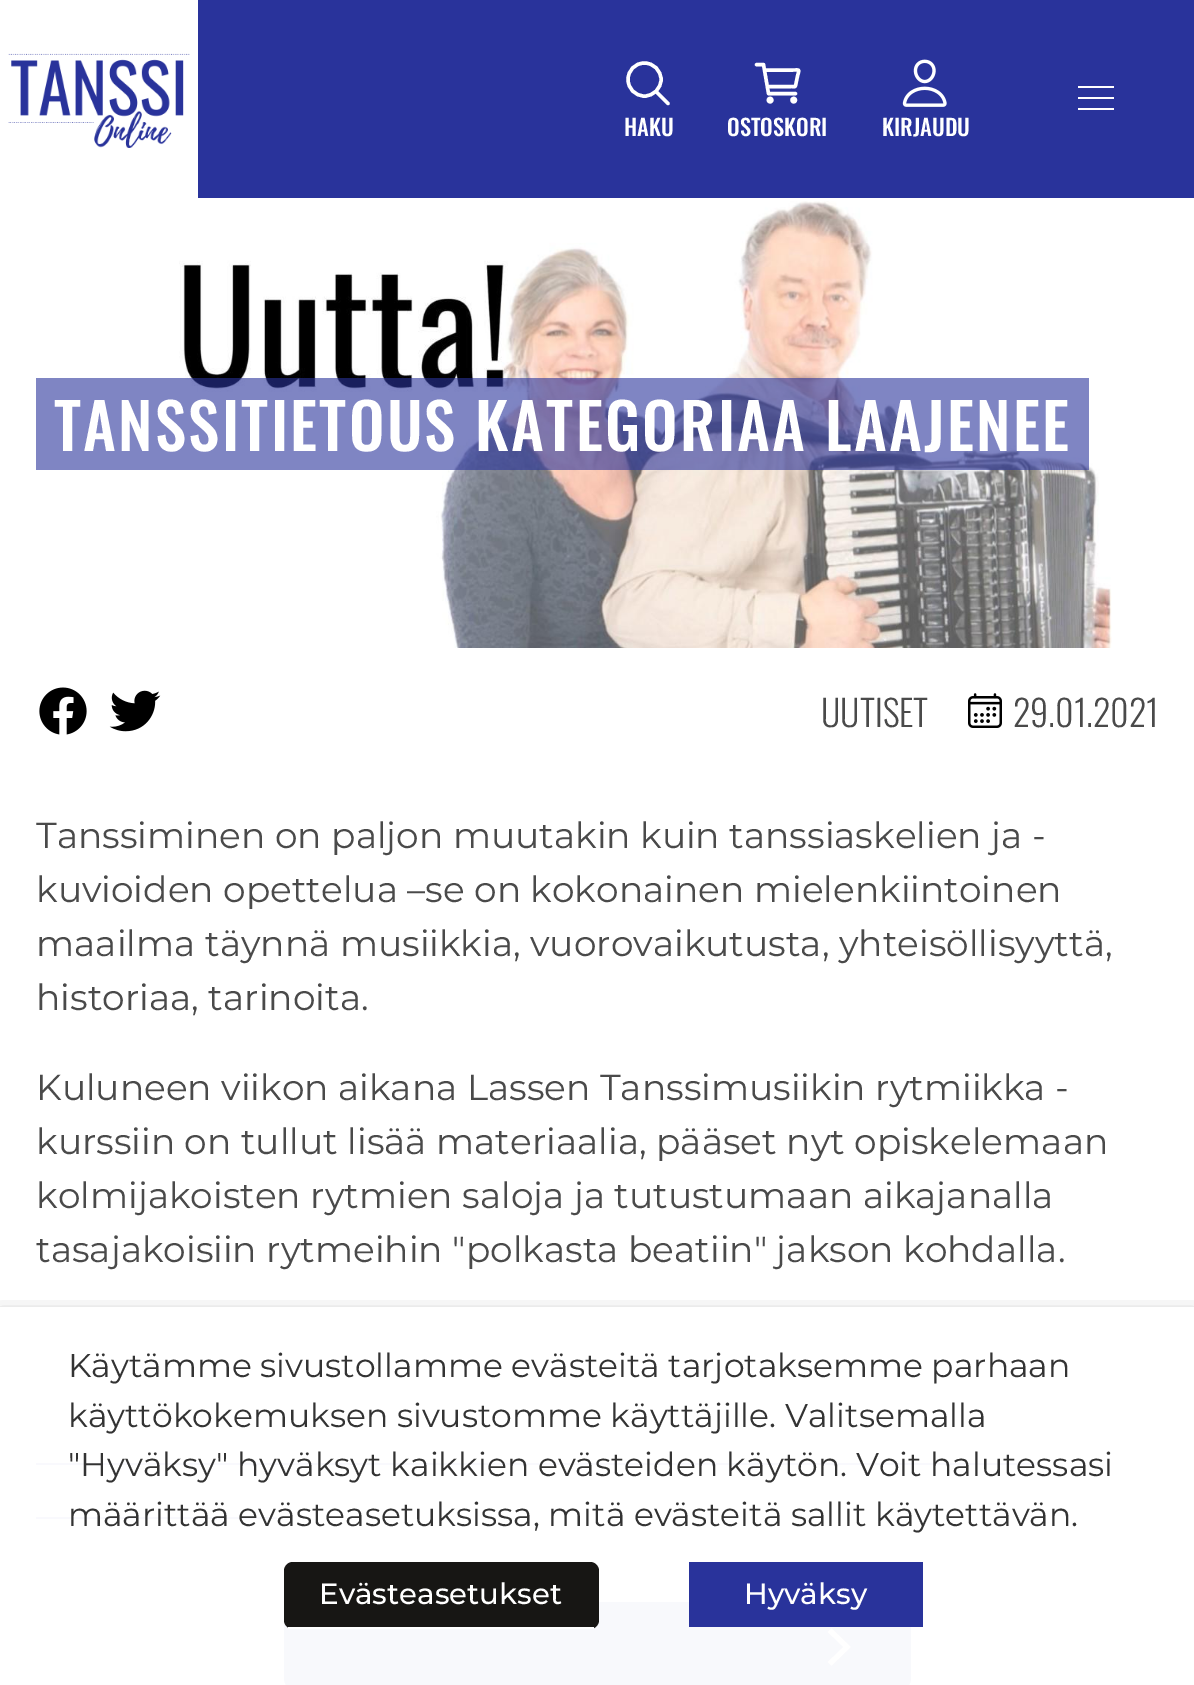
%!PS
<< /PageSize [1194 1685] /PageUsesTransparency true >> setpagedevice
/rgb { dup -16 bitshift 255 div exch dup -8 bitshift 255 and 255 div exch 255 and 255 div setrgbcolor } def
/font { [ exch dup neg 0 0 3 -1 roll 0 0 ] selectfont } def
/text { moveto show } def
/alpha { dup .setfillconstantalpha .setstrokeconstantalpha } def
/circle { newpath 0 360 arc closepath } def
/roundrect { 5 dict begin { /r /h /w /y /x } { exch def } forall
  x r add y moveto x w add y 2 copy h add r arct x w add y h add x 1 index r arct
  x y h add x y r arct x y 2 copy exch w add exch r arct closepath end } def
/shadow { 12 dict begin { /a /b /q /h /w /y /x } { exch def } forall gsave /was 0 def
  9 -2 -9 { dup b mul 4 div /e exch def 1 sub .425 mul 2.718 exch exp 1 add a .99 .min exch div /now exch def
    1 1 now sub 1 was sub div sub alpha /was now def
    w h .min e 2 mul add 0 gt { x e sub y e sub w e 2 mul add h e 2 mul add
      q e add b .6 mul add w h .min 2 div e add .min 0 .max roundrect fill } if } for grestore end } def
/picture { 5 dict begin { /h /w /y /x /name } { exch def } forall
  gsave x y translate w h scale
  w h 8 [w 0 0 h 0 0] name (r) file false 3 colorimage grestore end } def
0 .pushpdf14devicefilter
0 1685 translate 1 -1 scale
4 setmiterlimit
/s1 { /Oswald-Medium 22.5 font 16#FFFFFF rgb } def
/s2 { /Oswald-Light 36 font 16#4A4A4A rgb } def
/s3 { /Montserrat-Regular 36 font 16#4A4A4A rgb } def
/s4 { /Montserrat-Regular 33 font 16#333333 rgb } def
/s5 { /Montserrat-Medium 29.25 font 16#FFFFFF rgb } def
16#FFFFFF rgb
0 0 1194 1685 rectfill
16#29339B rgb
198 0 996 198 rectfill
(pic1.raw) 8 53 182 95 picture
16#FFFFFF rgb
1078 86 36 2 rectfill
1078 97 36 2 rectfill
1078 108 36 2 rectfill
3.4 setlinewidth
644.5 63 moveto 635 63 628 70.5 628 79.5 curveto 628 88.5 635 96 644.5 96 curveto 653.5 96 661 88.5 661 79.5 curveto 661 70.5 653.5 63 644.5 63 curveto closepath stroke
1 setlinecap
656.5 92 moveto 668 103.5 lineto stroke
s1
(HAKU) 624 136 text
0 setlinecap
770.1 100.1 1.7 circle stroke
793.7 100.1 1.7 circle stroke
1 setlinecap
1 setlinejoin
756.5 64.5 moveto 763.5 64.5 lineto 768.5 93.5 lineto 795.5 93.5 lineto 768.5 86.5 moveto 790.5 86.5 lineto 795.5 86.5 795 88 796 83.5 curveto 797 78.5 lineto 799 68.5 801 70 792.5 70 curveto 765 70 lineto stroke
(OSTOSKORI) 727 136 text
(pic2.raw) 902 59 45 48 picture
(KIRJAUDU) 882 136 text
(pic3.raw) 179 201 933 447 picture
0.6 alpha
16#29339B rgb
54 378 1017 92 rectfill
/Oswald-Medium 63 font
1 alpha
16#FFFFFF rgb
54 451 moveto 2.25 0 (TANSSITIETOUS KATEGORIAA LAAJENEE) ashow
16#7F85C3 rgb
36 378 18 92 rectfill
0.6 alpha
16#29339B rgb
1071 378 18 92 rectfill
1 alpha
(pic4.raw) 39 687 48 48 picture
(pic5.raw) 109 690 52 42 picture
s2
(UUTISET) 821 727 text
(pic6.raw) 968 693 34 35 picture
(29.01.2021) 1013 727 text
s3
(Tanssiminen on paljon muutakin kuin tanssiaskelien ja -) 36 848 text
(kuvioiden opettelua –se on kokonainen mielenkiintoinen) 36 902 text
(maailma täynnä musiikkia, vuorovaikutusta, yhteisöllisyyttä,) 36 956 text
(historiaa, tarinoita.) 36 1010 text
(Kuluneen viikon aikana Lassen Tanssimusiikin rytmiikka -) 36 1100 text
(kurssiin on tullut lisää materiaalia, pääset nyt opiskelemaan) 36 1154 text
(kolmijakoisten rytmien saloja ja tutustumaan aikajanalla) 36 1208 text
(tasajakoisiin rytmeihin "polkasta beatiin" jakson kohdalla.) 36 1262 text
16#3440C3 rgb
36 1463 1004 2 rectfill
36 1517 241 2 rectfill
16#29339B rgb
284 1602 627 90 14 roundrect fill
16#FFFFFF rgb
5.1 setlinewidth
2 setlinecap
0 setlinejoin
831.5 1632 moveto 847 1647 lineto 831.5 1662 lineto stroke
gsave
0 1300 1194 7 rectclip
16#000000 rgb
0 1319 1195 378 0 11 0.5 shadow
grestore
0.97 alpha
2 1307 1191 378 rectfill
1 alpha
s4
(Käytämme sivustollamme evästeitä tarjotaksemme parhaan) 68 1377 text
(käyttökokemuksen sivustomme käyttäjille. Valitsemalla) 68 1427 text
("Hyväksy" hyväksyt kaikkien evästeiden käytön. Voit halutessasi) 68 1476 text
(määrittää evästeasetuksissa, mitä evästeitä sallit käytettävän.) 68 1526 text
16#171614 rgb
284 1562 315 67 9 roundrect fill
16#FFFFFF rgb
288 1627 306 2 rectfill
s5
(Evästeasetukset) 319 1604 text
16#29339B rgb
689 1562 234 65 rectfill
s5
(Hyväksy) 744 1604 text
.poppdf14devicefilter showpage
